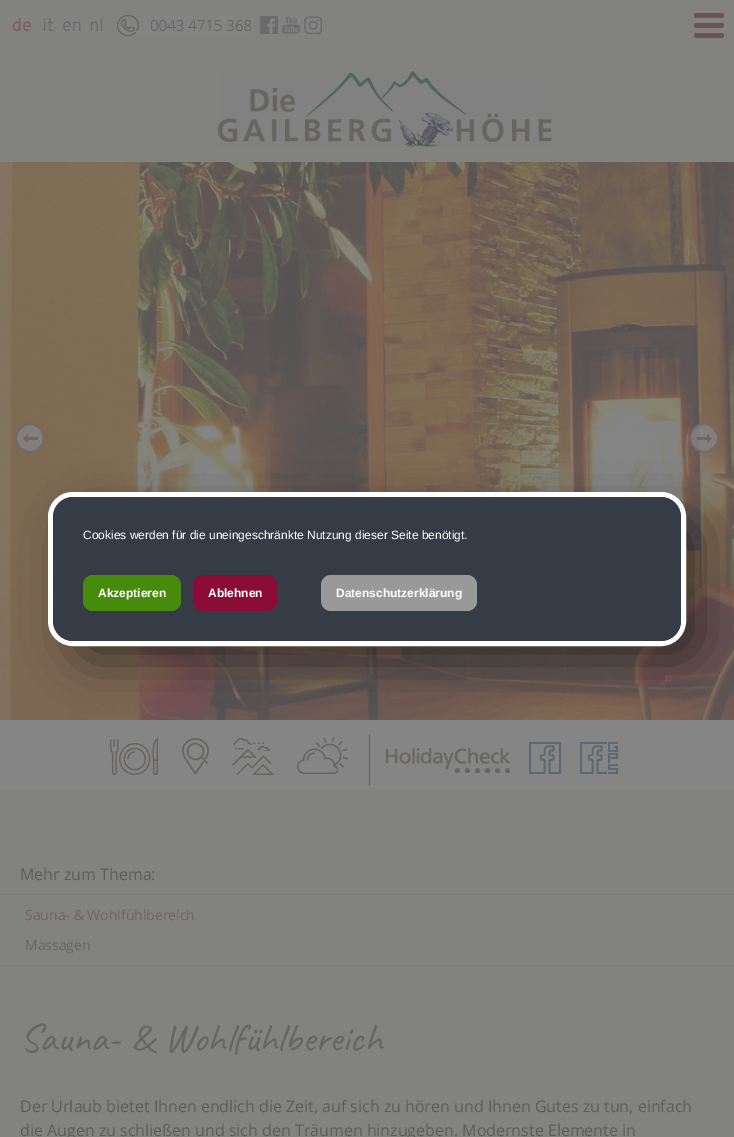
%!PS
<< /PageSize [734 1137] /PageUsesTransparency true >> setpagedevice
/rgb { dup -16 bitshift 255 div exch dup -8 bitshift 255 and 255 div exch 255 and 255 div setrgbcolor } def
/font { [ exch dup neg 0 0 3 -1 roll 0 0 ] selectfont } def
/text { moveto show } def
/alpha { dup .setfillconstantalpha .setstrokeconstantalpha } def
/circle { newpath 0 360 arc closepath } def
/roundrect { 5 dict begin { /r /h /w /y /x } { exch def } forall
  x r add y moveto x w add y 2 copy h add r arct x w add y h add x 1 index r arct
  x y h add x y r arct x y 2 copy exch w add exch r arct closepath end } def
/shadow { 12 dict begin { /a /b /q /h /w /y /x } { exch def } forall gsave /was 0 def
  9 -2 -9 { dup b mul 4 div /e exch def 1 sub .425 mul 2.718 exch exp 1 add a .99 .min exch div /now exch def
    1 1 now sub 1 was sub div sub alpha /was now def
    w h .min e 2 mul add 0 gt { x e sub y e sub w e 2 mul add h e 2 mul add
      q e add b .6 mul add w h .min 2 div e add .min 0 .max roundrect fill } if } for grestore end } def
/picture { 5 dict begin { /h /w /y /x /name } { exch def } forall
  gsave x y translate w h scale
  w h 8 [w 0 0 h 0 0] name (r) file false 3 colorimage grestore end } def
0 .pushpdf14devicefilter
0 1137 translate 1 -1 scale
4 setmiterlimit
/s1 { /LiberationSans-Regular 12 font 16#FFFFFF rgb } def
/s2 { /LiberationSans-Bold 12 font 16#FFFFFF rgb } def
/s3 { /OpenSans-Regular 16 font 16#5C5C5C rgb } def
/s4 { /OpenSans-Regular 14 font 16#756063 rgb } def
/s5 { /OpenSans-Regular 14 font 16#676561 rgb } def
16#828281 rgb
0 0 734 1137 rectfill
(pic10.raw) 0 162 734 558 picture
(pic11.raw) 15 423 30 30 picture
0.8 alpha
16#756063 rgb
2 setlinewidth
30 438 14 circle stroke
1 alpha
(pic12.raw) 689 423 30 30 picture
0.8 alpha
704 438 14 circle stroke
1 alpha
16#858585 rgb
0 720 734 70 rectfill
16#5C5C5C rgb
369 735 1 50 rectfill
16#000000 rgb
73 517 628 144 20 25 0.5 shadow
16#FFFFFF rgb
5 setlinewidth
50.5 494.5 633 149 22.5 roundrect stroke
16#353C45 rgb
53 497 628 144 20 roundrect fill
s1
(Cookies werden für die uneingeschränkte Nutzung dieser Seite benötigt.) 83 539 text
16#468B0C rgb
83 575 98 36 10 roundrect fill
s2
(Akzeptieren) 98 597 text
16#8B0C36 rgb
193 575 84 36 10 roundrect fill
s2
(Ablehnen) 208 597 text
16#999999 rgb
321 575 156 36 10 roundrect fill
s2
(Datenschutzerklärung) 336 597 text
(pic1.raw) 12 18 19 14 picture
(pic2.raw) 43 18 10 14 picture
(pic3.raw) 63 21 18 11 picture
(pic4.raw) 90 18 13 13 picture
(pic5.raw) 117 15 135 21 picture
(pic6.raw) 260 16 18 18 picture
(pic7.raw) 282 16 18 18 picture
(pic8.raw) 304 16 18 18 picture
16#6F5255 rgb
694 13 30 5 2.5 roundrect fill
694 23 30 5 2.5 roundrect fill
694 33 30 5 2.5 roundrect fill
(pic9.raw) 218 71 334 76 picture
(pic13.raw) 110 738 48 37 picture
(pic14.raw) 182 738 27 37 picture
(pic15.raw) 232 738 42 37 picture
(pic16.raw) 297 737 51 37 picture
(pic17.raw) 386 748 124 25 picture
(pic18.raw) 529 742 32 32 picture
(pic19.raw) 580 742 38 32 picture
s3
(Mehr zum Thema:) 20 880 text
16#7F7D7C rgb
0 894 734 1 rectfill
s4
(Sauna- & Wohlfühlbereich) 25 920 text
s5
(Massagen) 25 950 text
16#7F7D7C rgb
0 965 734 1 rectfill
/Caveat-Regular 40 font
16#676561 rgb
20 1051 moveto 1 0 32 (Sauna- & Wohlfühlbereich) widthshow
s3
(Der Urlaub bietet Ihnen endlich die Zeit, auf sich zu hören und Ihnen Gutes zu tun, einfach) 20 1112 text
(die Augen zu schließen und sich den Träumen hinzugeben. Modernste Elemente in) 20 1136 text
.poppdf14devicefilter showpage
